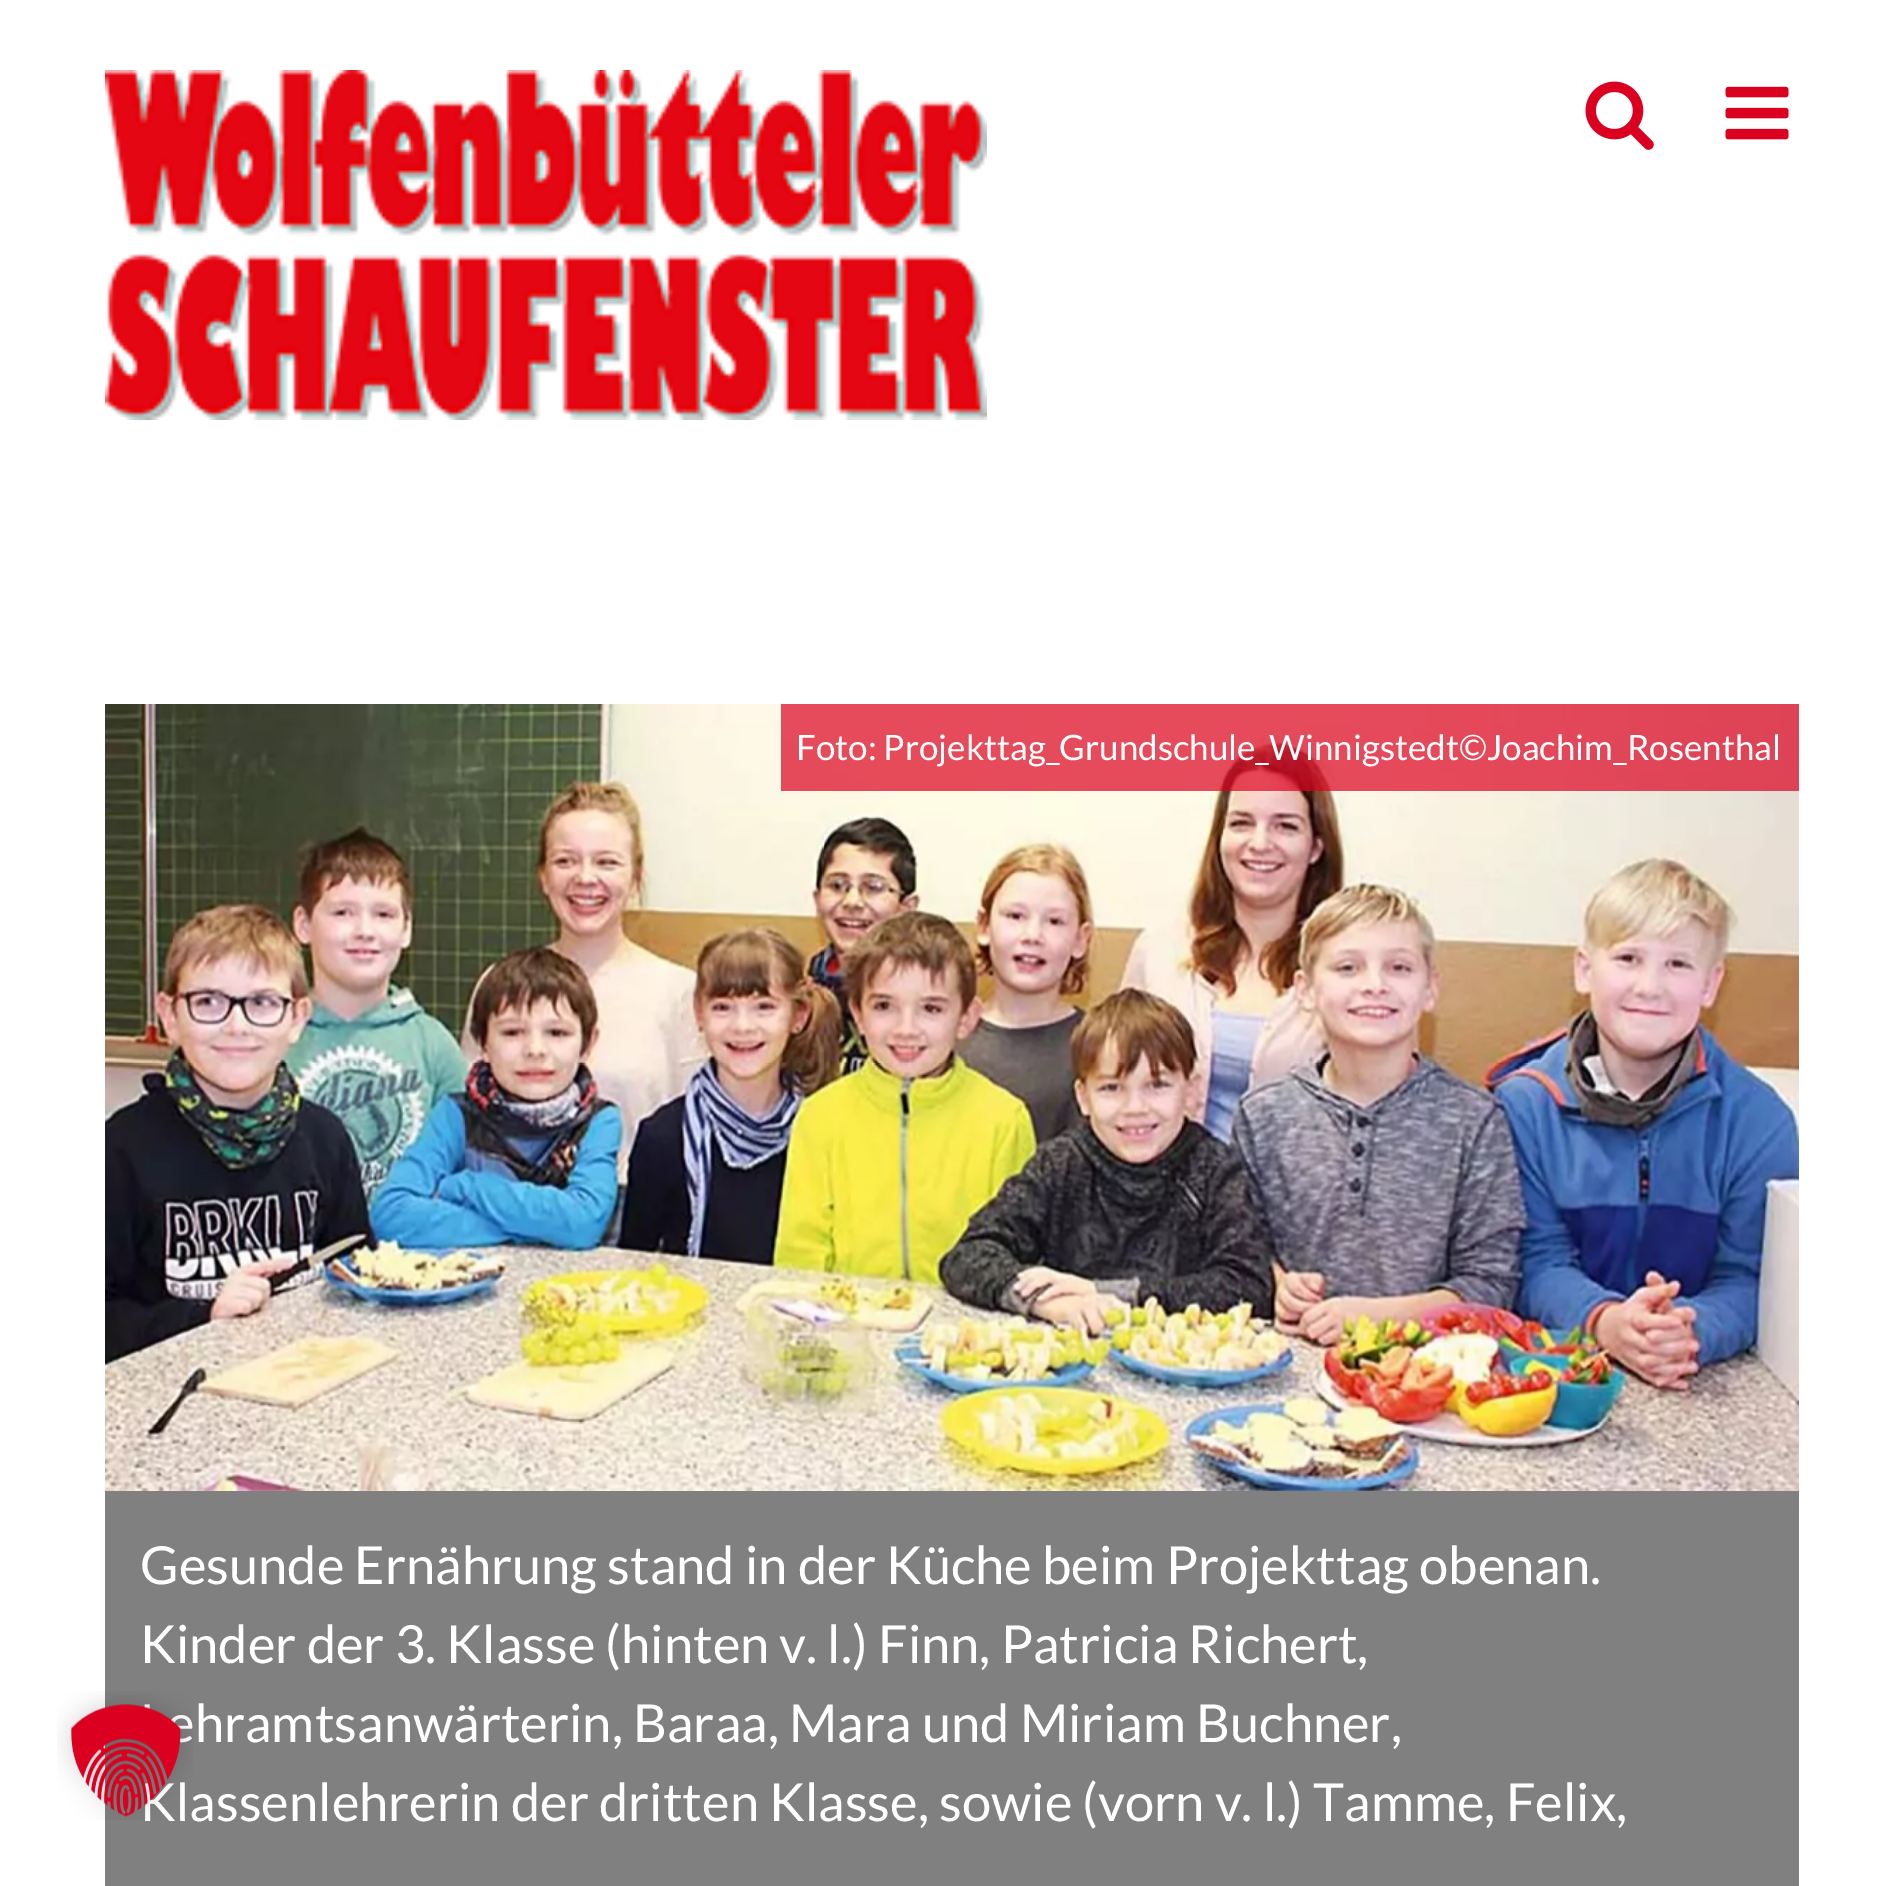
%!PS
<< /PageSize [1904 1886] /PageUsesTransparency true >> setpagedevice
/rgb { dup -16 bitshift 255 div exch dup -8 bitshift 255 and 255 div exch 255 and 255 div setrgbcolor } def
/font { [ exch dup neg 0 0 3 -1 roll 0 0 ] selectfont } def
/text { moveto show } def
/alpha { dup .setfillconstantalpha .setstrokeconstantalpha } def
/picture { 5 dict begin { /h /w /y /x /name } { exch def } forall
  gsave x y translate w h scale
  w h 8 [w 0 0 h 0 0] name (r) file false 3 colorimage grestore end } def
0 .pushpdf14devicefilter
0 1886 translate 1 -1 scale
4 setmiterlimit
/s1 { /Lato-Regular 52.5 font 16#FFFFFF rgb } def
/s2 { /Lato-Regular 35 font 16#FFFFFF rgb } def
16#FFFFFF rgb
0 0 1904 1886 rectfill
16#808080 rgb
105 1491 1694 395 rectfill
s1
(ehramtsanwärterin, Baraa, Mara und Miriam Buchner,) 167 1742 text
(Klassenlehrerin der dritten Klasse, sowie \(vorn v. l.\) Tamme, Felix,) 140 1821 text
(pic1.raw) 57 1691 136 129 picture
(pic2.raw) 105 70 882 350 picture
(pic3.raw) 1585 81 69 69 picture
(pic4.raw) 1725 86 64 54 picture
(pic5.raw) 105 704 1694 787 picture
0.7 alpha
16#DB001F rgb
781 704 1018 87 rectfill
1 alpha
s2
(Foto: Projekttag_Grundschule_Winnigstedt©Joachim_Rosenthal) 796 760 text
s1
(Gesunde Ernährung stand in der Küche beim Projekttag obenan.) 140 1584 text
(Kinder der 3. Klasse \(hinten v. l.\) Finn, Patricia Richert,) 140 1663 text
.poppdf14devicefilter showpage
